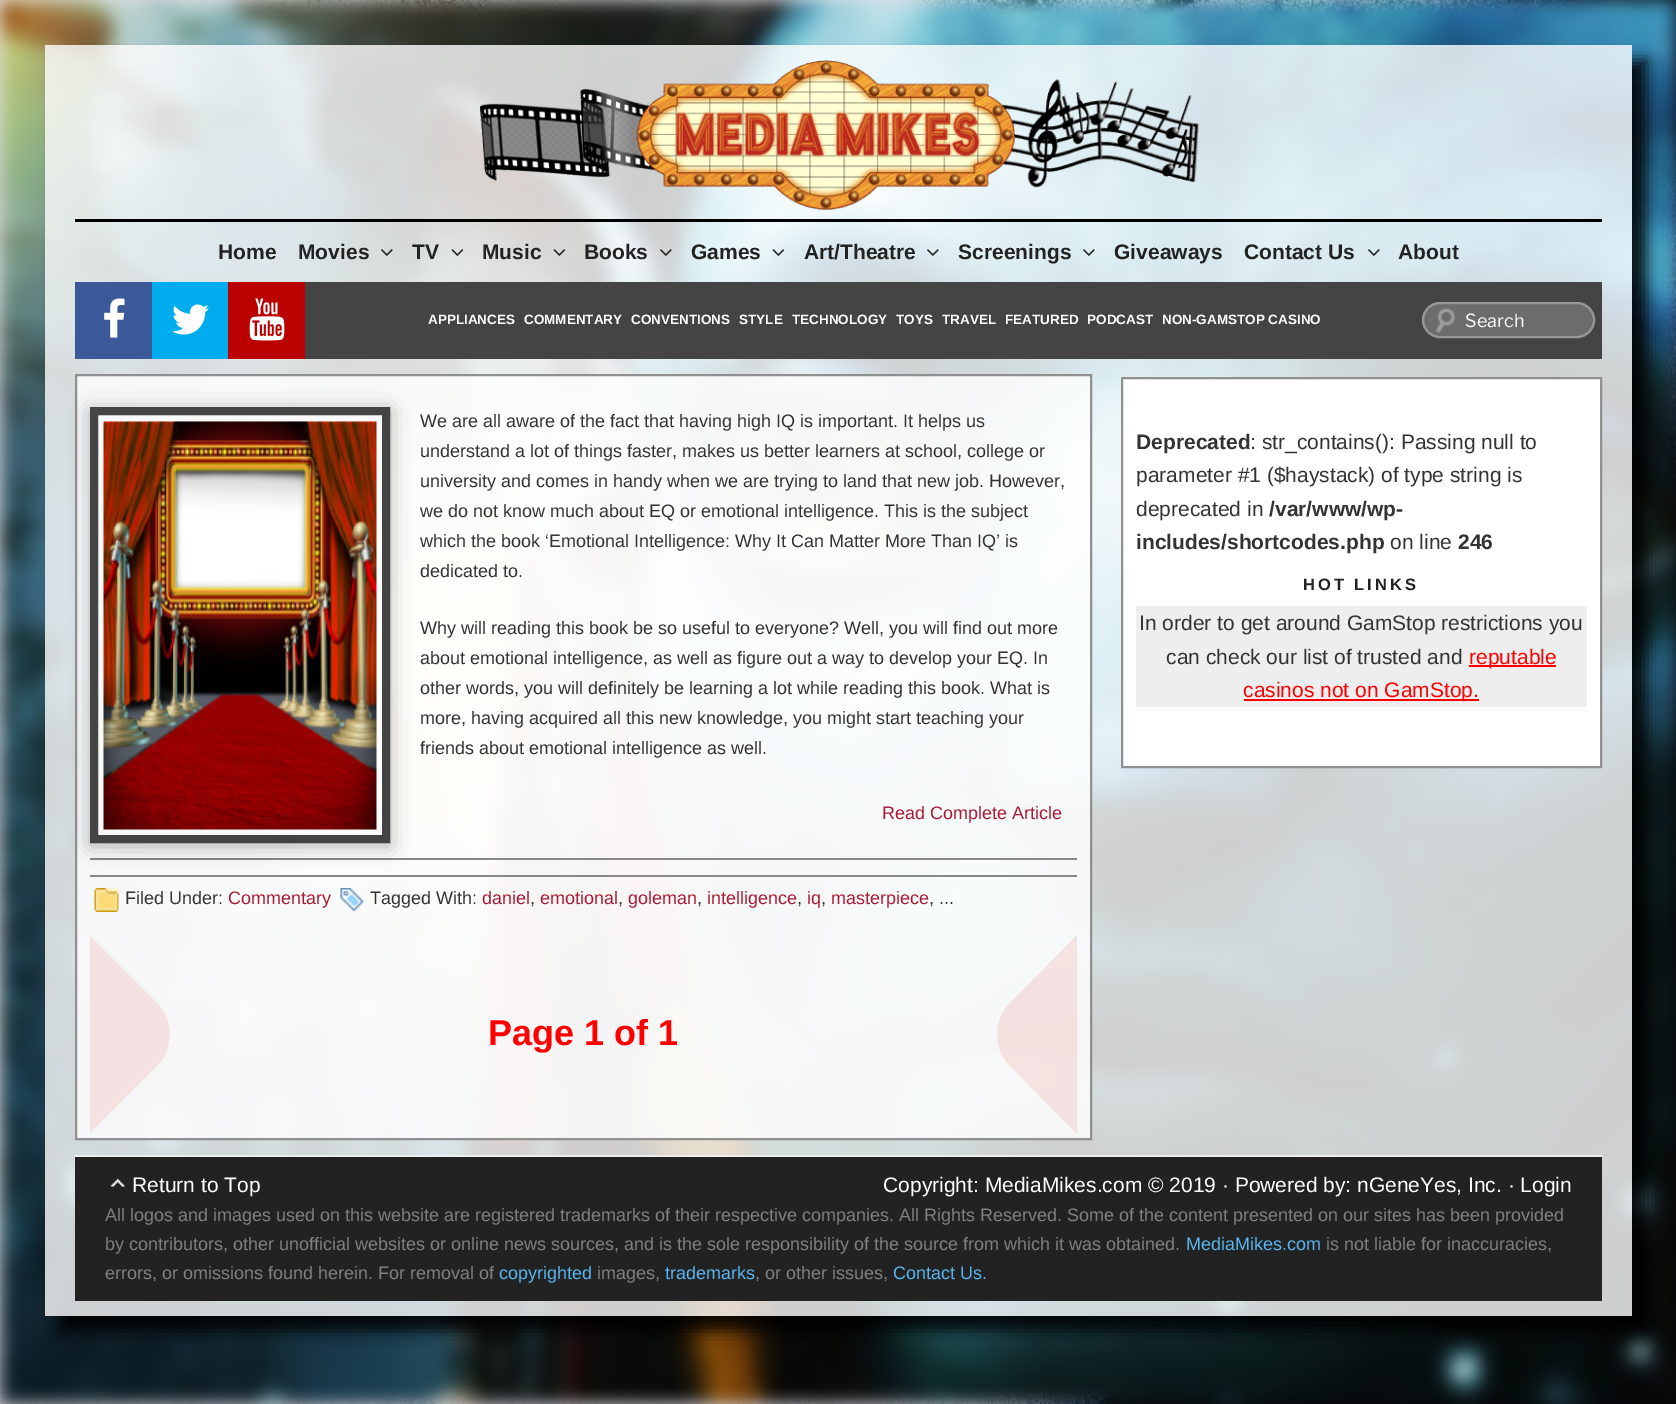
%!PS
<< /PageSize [1676 1404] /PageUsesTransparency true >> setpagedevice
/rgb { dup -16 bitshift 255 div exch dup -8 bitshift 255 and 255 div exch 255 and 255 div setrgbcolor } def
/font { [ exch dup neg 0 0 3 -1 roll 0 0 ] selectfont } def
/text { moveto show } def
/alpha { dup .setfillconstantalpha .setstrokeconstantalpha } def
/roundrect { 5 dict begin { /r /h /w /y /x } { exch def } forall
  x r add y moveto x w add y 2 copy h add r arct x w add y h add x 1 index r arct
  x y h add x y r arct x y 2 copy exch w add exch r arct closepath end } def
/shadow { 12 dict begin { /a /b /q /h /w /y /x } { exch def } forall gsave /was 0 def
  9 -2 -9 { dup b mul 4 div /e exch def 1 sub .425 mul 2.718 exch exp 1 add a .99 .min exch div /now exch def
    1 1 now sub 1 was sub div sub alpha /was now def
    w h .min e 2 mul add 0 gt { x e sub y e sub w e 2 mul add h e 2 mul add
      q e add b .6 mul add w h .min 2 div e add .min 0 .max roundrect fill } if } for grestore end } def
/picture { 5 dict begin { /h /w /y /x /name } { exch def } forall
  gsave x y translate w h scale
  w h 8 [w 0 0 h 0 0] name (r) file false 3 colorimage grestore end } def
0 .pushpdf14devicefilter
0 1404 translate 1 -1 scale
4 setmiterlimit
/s1 { /LiberationSans-Bold 21 font 16#222222 rgb } def
/s2 { /LiberationSans-Bold 13.5 font 16#FFFFFF rgb } def
/s3 { /LibreFranklin-Regular 18 font 16#FFFFFF rgb } def
/s4 { /LiberationSans-Regular 18 font 16#333333 rgb } def
/s5 { /LiberationSans-Regular 18 font 16#A91B33 rgb } def
/s6 { /LiberationSans-Bold 36 font 16#FF0000 rgb } def
/s7 { /LiberationSans-Bold 21 font 16#333333 rgb } def
/s8 { /LiberationSans-Regular 21 font 16#333333 rgb } def
/s9 { /LiberationSans-Regular 21 font 16#FF0000 rgb } def
/s10 { /LiberationSans-Regular 21 font 16#FFFFFF rgb } def
/s11 { /LiberationSans-Regular 18 font 16#808080 rgb } def
/s12 { /LiberationSans-Regular 18 font 16#58B5EF rgb } def
16#FFFFFF rgb
0 0 1676 1404 rectfill
(pic1.raw) 0 0 1676 1404 picture
(pic2.raw) 0 0 1676 1404 picture
gsave
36 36 moveto 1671 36 lineto 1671 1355 lineto 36 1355 lineto closepath 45 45 moveto 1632 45 lineto 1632 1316 lineto 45 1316 lineto closepath eoclip newpath
16#000000 rgb
60 60 1587 1271 0 7.5 0.88 shadow
grestore
0.8 alpha
45 45 1587 1271 rectfill
1 alpha
(pic3.raw) 480 60 719 150 picture
16#000000 rgb
75 219 1527 3 rectfill
s1
(Home) 218 259 text
(Movies) 298 259 text
(pic4.raw) 381 249 12 7 picture
(TV) 412 259 text
(pic5.raw) 451 249 13 7 picture
(Music) 482 259 text
(pic6.raw) 553 249 13 7 picture
(Books) 584 259 text
(pic7.raw) 660 249 12 7 picture
(Games) 691 259 text
(pic8.raw) 772 249 13 7 picture
(Art/Theatre) 804 259 text
(pic9.raw) 927 249 12 7 picture
(Screenings) 958 259 text
(pic10.raw) 1083 249 12 7 picture
(Giveaways) 1114 259 text
(Contact Us) 1244 259 text
(pic11.raw) 1368 249 12 7 picture
(About) 1398 259 text
16#444444 rgb
305 282 1297 77 rectfill
16#3B5998 rgb
75 282 77 77 rectfill
(pic12.raw) 104 298 21 40 picture
16#00ACED rgb
152 282 76 77 rectfill
(pic13.raw) 172 304 37 31 picture
16#BB0000 rgb
228 282 77 77 rectfill
(pic14.raw) 249 298 36 43 picture
s2
(APPLIANCES) 428 324 text
(COMMENTARY) 524 324 text
(CONVENTIONS) 631 324 text
(STYLE) 739 324 text
(TECHNOLOGY) 792 324 text
(TOYS) 896 324 text
(TRAVEL) 942 324 text
(FEATURED) 1005 324 text
(PODCAST) 1087 324 text
(NON-GAMSTOP CASINO) 1162 324 text
16#6C6C6C rgb
1422 302 173 36 18 roundrect fill
(pic15.raw) 1435 307 21 26 picture
16#979797 rgb
2 setlinewidth
1423 303 171 34 17 roundrect stroke
s3
(Search) 1465 327 text
0.8 alpha
76 375 moveto 1091 375 lineto 1091 1139 lineto 76 1139 lineto closepath fill
1 alpha
16#909090 rgb
76 375 moveto 1091 375 lineto 1091 1139 lineto 76 1139 lineto closepath stroke
16#888888 rgb
90 858 987 2 rectfill
90 875 987 2 rectfill
gsave
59 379 moveto 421 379 lineto 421 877 lineto 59 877 lineto closepath 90 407 moveto 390 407 lineto 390 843 lineto 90 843 lineto closepath eoclip newpath
16#000000 rgb
90 410 300 436 0 10 0.3 shadow
grestore
16#444444 rgb
8 setlinewidth
94 411 292 428 rectstroke
(pic16.raw) 103 420 274 410 picture
s4
(We are all aware of the fact that having high IQ is important. It helps us) 420 427 text
(understand a lot of things faster, makes us better learners at school, college or) 420 457 text
(university and comes in handy when we are trying to land that new job. However,) 420 487 text
(we do not know much about EQ or emotional intelligence. This is the subject) 420 517 text
(which the book ‘Emotional Intelligence: Why It Can Matter More Than IQ’ is) 420 547 text
(dedicated to.) 420 577 text
(Why will reading this book be so useful to everyone? Well, you will find out more) 420 634 text
(about emotional intelligence, as well as figure out a way to develop your EQ. In) 420 664 text
(other words, you will definitely be learning a lot while reading this book. What is) 420 694 text
(more, having acquired all this new knowledge, you might start teaching your) 420 724 text
(friends about emotional intelligence as well.) 420 754 text
s5
(Read Complete Article) 882 819 text
(pic17.raw) 94 888 25 24 picture
s4
(Filed Under:) 125 904 text
s5
(Commentary) 228 904 text
(pic18.raw) 340 888 25 24 picture
s4
(Tagged With:) 370 904 text
s5
(daniel) 482 904 text
s4
(,) 530 904 text
s5
(emotional) 540 904 text
s4
(,) 618 904 text
s5
(goleman) 628 904 text
s4
(,) 697 904 text
s5
(intelligence) 707 904 text
s4
(,) 797 904 text
s5
(iq) 807 904 text
s4
(,) 821 904 text
s5
(masterpiece) 831 904 text
s4
(, ...) 929 904 text
gsave
90 930 83 207 rectclip
16#F5E1E1 rgb
82 928 moveto 157 1003 lineto 174 1020 174 1049 157 1066 curveto 82 1141 lineto 8 1066 lineto -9 1049 -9 1020 8 1003 curveto closepath fill
grestore
s6
(Page 1 of 1) 488 1045 text
gsave
995 930 82 207 rectclip
0.1 alpha
16#E71312 rgb
1084 928 moveto 1159 1003 lineto 1176 1020 1176 1049 1159 1066 curveto 1084 1141 lineto 1010 1066 lineto 993 1049 993 1020 1010 1003 curveto closepath fill
grestore
16#FFFFFF rgb
1122 378 moveto 1601 378 lineto 1601 767 lineto 1122 767 lineto closepath gsave fill grestore
16#909090 rgb
2 setlinewidth
stroke
s7
(Deprecated) 1136 449 text
s8
(: str_contains\(\): Passing null to) 1250 449 text
(parameter #1 \($haystack\) of type string is) 1136 482 text
(deprecated in) 1136 516 text
s7
(/var/www/wp-) 1269 516 text
(includes/shortcodes.php) 1136 549 text
s8
(on line) 1390 549 text
s7
(246) 1458 549 text
/LiberationSans-Bold 16.5 font
16#222222 rgb
1303 590 moveto 3 0 (HOT LINKS) ashow
16#EEEEEE rgb
1136 606 451 101 rectfill
s8
(In order to get around GamStop restrictions you) 1139 630 text
(can check our list of trusted and) 1166 664 text
16#FF0000 rgb
1469 665 87 2 rectfill
(reputable) 1469 664 text
1244 699 235 2 rectfill
(casinos not on GamStop.) 1243 697 text
16#EEEEEE rgb
75 1155 1527 2 rectfill
16#222222 rgb
75 1157 1527 144 rectfill
(pic19.raw) 110 1178 15 9 picture
s10
(Return to Top) 132 1192 text
(Copyright: MediaMikes.com © 2019 · Powered by: nGeneYes, Inc. · Login) 883 1192 text
s11
(All logos and images used on this website are registered trademarks of their respective companies. All Rights Reserved. Some of the content presented on our sites has been provided) 105 1221 text
(by contributors, other unofficial websites or online news sources, and is the sole responsibility of the source from which it was obtained.) 105 1250 text
s12
(MediaMikes.com) 1186 1250 text
s11
(is not liable for inaccuracies,) 1326 1250 text
(errors, or omissions found herein. For removal of) 105 1279 text
s12
(copyrighted) 499 1279 text
s11
(images,) 597 1279 text
s12
(trademarks) 665 1279 text
s11
(, or other issues,) 755 1279 text
s12
(Contact Us.) 893 1279 text
.poppdf14devicefilter showpage
